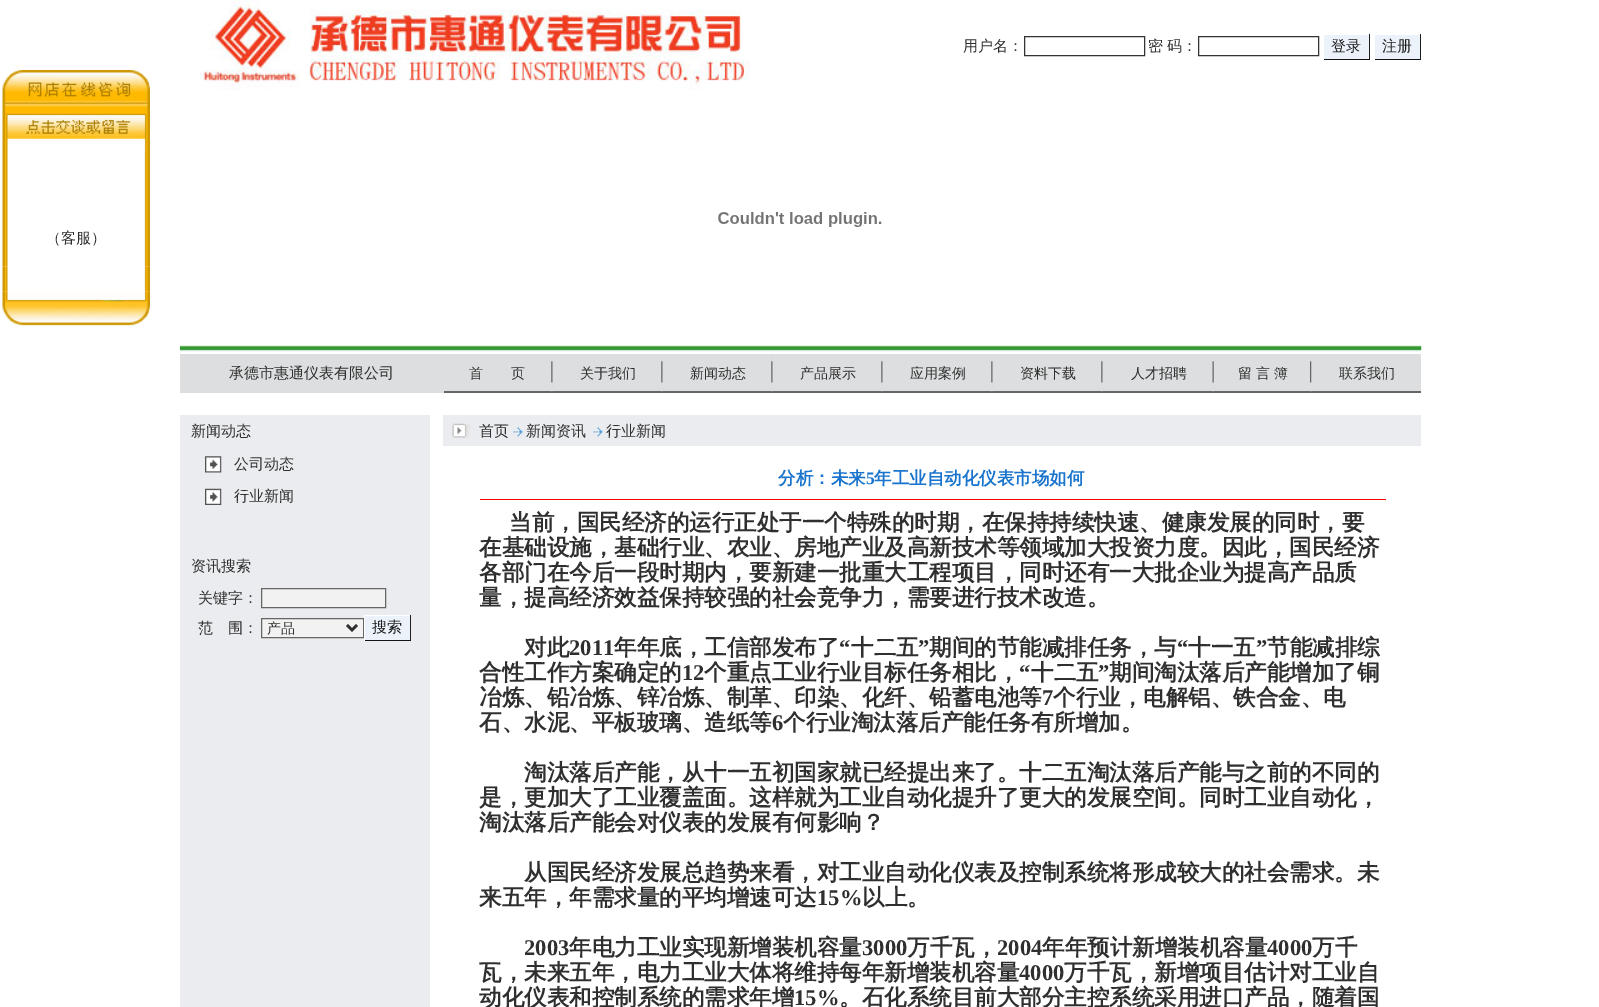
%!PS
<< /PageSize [1599 1007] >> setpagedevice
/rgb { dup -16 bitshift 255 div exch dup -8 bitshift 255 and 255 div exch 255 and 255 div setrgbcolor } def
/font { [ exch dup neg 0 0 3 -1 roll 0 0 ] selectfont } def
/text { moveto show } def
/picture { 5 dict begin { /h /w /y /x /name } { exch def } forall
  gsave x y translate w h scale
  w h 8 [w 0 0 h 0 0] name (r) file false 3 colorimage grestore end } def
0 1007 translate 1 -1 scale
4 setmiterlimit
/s1 { /WenQuanYiZenHei-Medium 15 font 16#2F2F2F rgb } def
/s2 { /WenQuanYiZenHei-Medium 15 font 16#1C1C1C rgb } def
/s3 { /WenQuanYiZenHei-Medium 14 font 16#2F2F2F rgb } def
/s4 { /WenQuanYiZenHei-Bold 17.5 font 16#1874CD rgb } def
/s5 { /LiberationSerif-Bold 17.5 font 16#1874CD rgb } def
/s6 { /WenQuanYiZenHei-Bold 22.5 font 16#2F2F2F rgb } def
/s7 { /LiberationSerif-Bold 22.5 font 16#2F2F2F rgb } def
16#FFFFFF rgb
0 0 1599 1007 rectfill
(pic1.raw) 2 70 148 80 picture
(pic2.raw) 2 150 148 75 picture
(pic3.raw) 2 225 148 42 picture
s1
(（客服）) 46 243 text
(pic4.raw) 2 266 148 26 picture
(pic5.raw) 2 291 148 35 picture
(pic6.raw) 200 0 550 90 picture
(用户名：) 963 51 text
16#333333 rgb
1024.5 36.5 120 19 rectstroke
s1
(密) 1148 51 text
(码：) 1167 51 text
16#333333 rgb
1198.5 36.5 120 19 rectstroke
16#EBF2F9 rgb
1324 35 45 24 rectfill
16#1F1F1F rgb
1369 34 1 26 rectfill
16#131313 rgb
1323 59 47 1 rectfill
16#FFFFFF rgb
1323 59 1 1 rectfill
s2
(登录) 1331 51 text
16#EBF2F9 rgb
1375 35 45 24 rectfill
16#1F1F1F rgb
1420 34 1 26 rectfill
16#131313 rgb
1374 59 47 1 rectfill
16#FFFFFF rgb
1374 59 1 1 rectfill
s2
(注册) 1382 51 text
(pic7.raw) 718 212 164 15 picture
(pic8.raw) 180 345 1242 7 picture
16#DDDEDF rgb
180 354 264 39 rectfill
s1
(承德市惠通仪表有限公司) 229 378 text
16#666666 rgb
444 391 977 2 rectfill
16#DDDEDF rgb
444 354 977 37 rectfill
s3
(首　　页) 469 378 text
(pic9.raw) 551 353 2 39 picture
(关于我们) 580 378 text
(pic9.raw) 661 353 2 39 picture
(新闻动态) 690 378 text
(pic9.raw) 771 353 2 39 picture
(产品展示) 800 378 text
(pic9.raw) 881 353 2 39 picture
(应用案例) 910 378 text
(pic9.raw) 991 353 2 39 picture
(资料下载) 1020 378 text
(pic9.raw) 1101 353 2 39 picture
(人才招聘) 1131 378 text
(pic10.raw) 1212 353 2 39 picture
(留 言 簿) 1238 378 text
(pic11.raw) 1310 353 2 39 picture
(联系我们) 1339 378 text
16#EBECEF rgb
180 415 250 592 rectfill
s1
(新闻动态) 191 436 text
(pic12.raw) 205 456 17 17 picture
(公司动态) 234 469 text
(pic13.raw) 205 488 17 17 picture
(行业新闻) 234 501 text
(资讯搜索) 191 571 text
(关键字：) 198 603 text
16#F2F2F2 rgb
261.5 588.5 moveto 385.5 588.5 lineto 385.5 607.5 lineto 261.5 607.5 lineto closepath gsave fill grestore
16#666666 rgb
stroke
s1
(范　围：) 198 633 text
16#F2F2F2 rgb
261.5 618.5 moveto 363.5 618.5 lineto 363.5 637.5 lineto 261.5 637.5 lineto closepath gsave fill grestore
16#666666 rgb
stroke
16#2F2F2F rgb
2.5 setlinewidth
347 625 moveto 352 630 lineto 357 625 lineto stroke
s3
(产品) 267 633 text
16#EBF2F9 rgb
365 616 45 24 rectfill
16#FFFFFF rgb
364 615 47 1 rectfill
16#1F1F1F rgb
410 615 1 26 rectfill
16#131313 rgb
364 640 47 1 rectfill
16#FFFFFF rgb
364 615 1 26 rectfill
s2
(搜索) 372 632 text
16#EBECEF rgb
443 415 978 31 rectfill
(pic14.raw) 452 423 18 15 picture
s1
(首页) 479 436 text
(pic15.raw) 513 427 10 10 picture
(新闻资讯) 526 436 text
(pic15.raw) 593 427 10 10 picture
(行业新闻) 606 436 text
s4
(分析：未来) 778 484 text
s5
(5) 866 484 text
s4
(年工业自动化仪表市场如何) 874 484 text
16#FF0000 rgb
480 499 906 1 rectfill
s6
(当前，国民经济的运行正处于一个特殊的时期，在保持持续快速、健康发展的同时，要) 509 530 text
(在基础设施，基础行业、农业、房地产业及高新技术等领域加大投资力度。因此，国民经济) 479 555 text
(各部门在今后一段时期内，要新建一批重大工程项目，同时还有一大批企业为提高产品质) 479 580 text
(量，提高经济效益保持较强的社会竞争力，需要进行技术改造。) 479 605 text
(对此) 524 655 text
s7
(2011) 569 655 text
s6
(年年底，工信部发布了) 614 655 text
s7
(“) 839 655 text
s6
(十二五) 851 655 text
s7
(”) 918 655 text
s6
(期间的节能减排任务，与) 929 655 text
s7
(“) 1177 655 text
s6
(十一五) 1188 655 text
s7
(”) 1256 655 text
s6
(节能减排综) 1267 655 text
(合性工作方案确定的) 479 680 text
s7
(12) 682 680 text
s6
(个重点工业行业目标任务相比，) 704 680 text
s7
(“) 1019 680 text
s6
(十二五) 1031 680 text
s7
(”) 1098 680 text
s6
(期间淘汰落后产能增加了铜) 1109 680 text
(冶炼、铅冶炼、锌冶炼、制革、印染、化纤、铅蓄电池等) 479 705 text
s7
(7) 1042 705 text
s6
(个行业，电解铝、铁合金、电) 1053 705 text
(石、水泥、平板玻璃、造纸等) 479 730 text
s7
(6) 772 730 text
s6
(个行业淘汰落后产能任务有所增加。) 783 730 text
(淘汰落后产能，从十一五初国家就已经提出来了。十二五淘汰落后产能与之前的不同的) 524 780 text
(是，更加大了工业覆盖面。这样就为工业自动化提升了更大的发展空间。同时工业自动化，) 479 805 text
(淘汰落后产能会对仪表的发展有何影响？) 479 830 text
(从国民经济发展总趋势来看，对工业自动化仪表及控制系统将形成较大的社会需求。未) 524 880 text
(来五年，年需求量的平均增速可达) 479 905 text
s7
(15%) 817 905 text
s6
(以上。) 862 905 text
s7
(2003) 524 955 text
s6
(年电力工业实现新增装机容量) 569 955 text
s7
(3000) 862 955 text
s6
(万千瓦，) 907 955 text
s7
(2004) 997 955 text
s6
(年年预计新增装机容量) 1042 955 text
s7
(4000) 1267 955 text
s6
(万千) 1312 955 text
(瓦，未来五年，电力工业大体将维持每年新增装机容量) 479 980 text
s7
(4000) 1019 980 text
s6
(万千瓦，新增项目估计对工业自) 1064 980 text
(动化仪表和控制系统的需求年增) 479 1005 text
s7
(15%) 794 1005 text
s6
(。石化系统目前大部分主控系统采用进口产品，随着国) 839 1005 text
showpage
